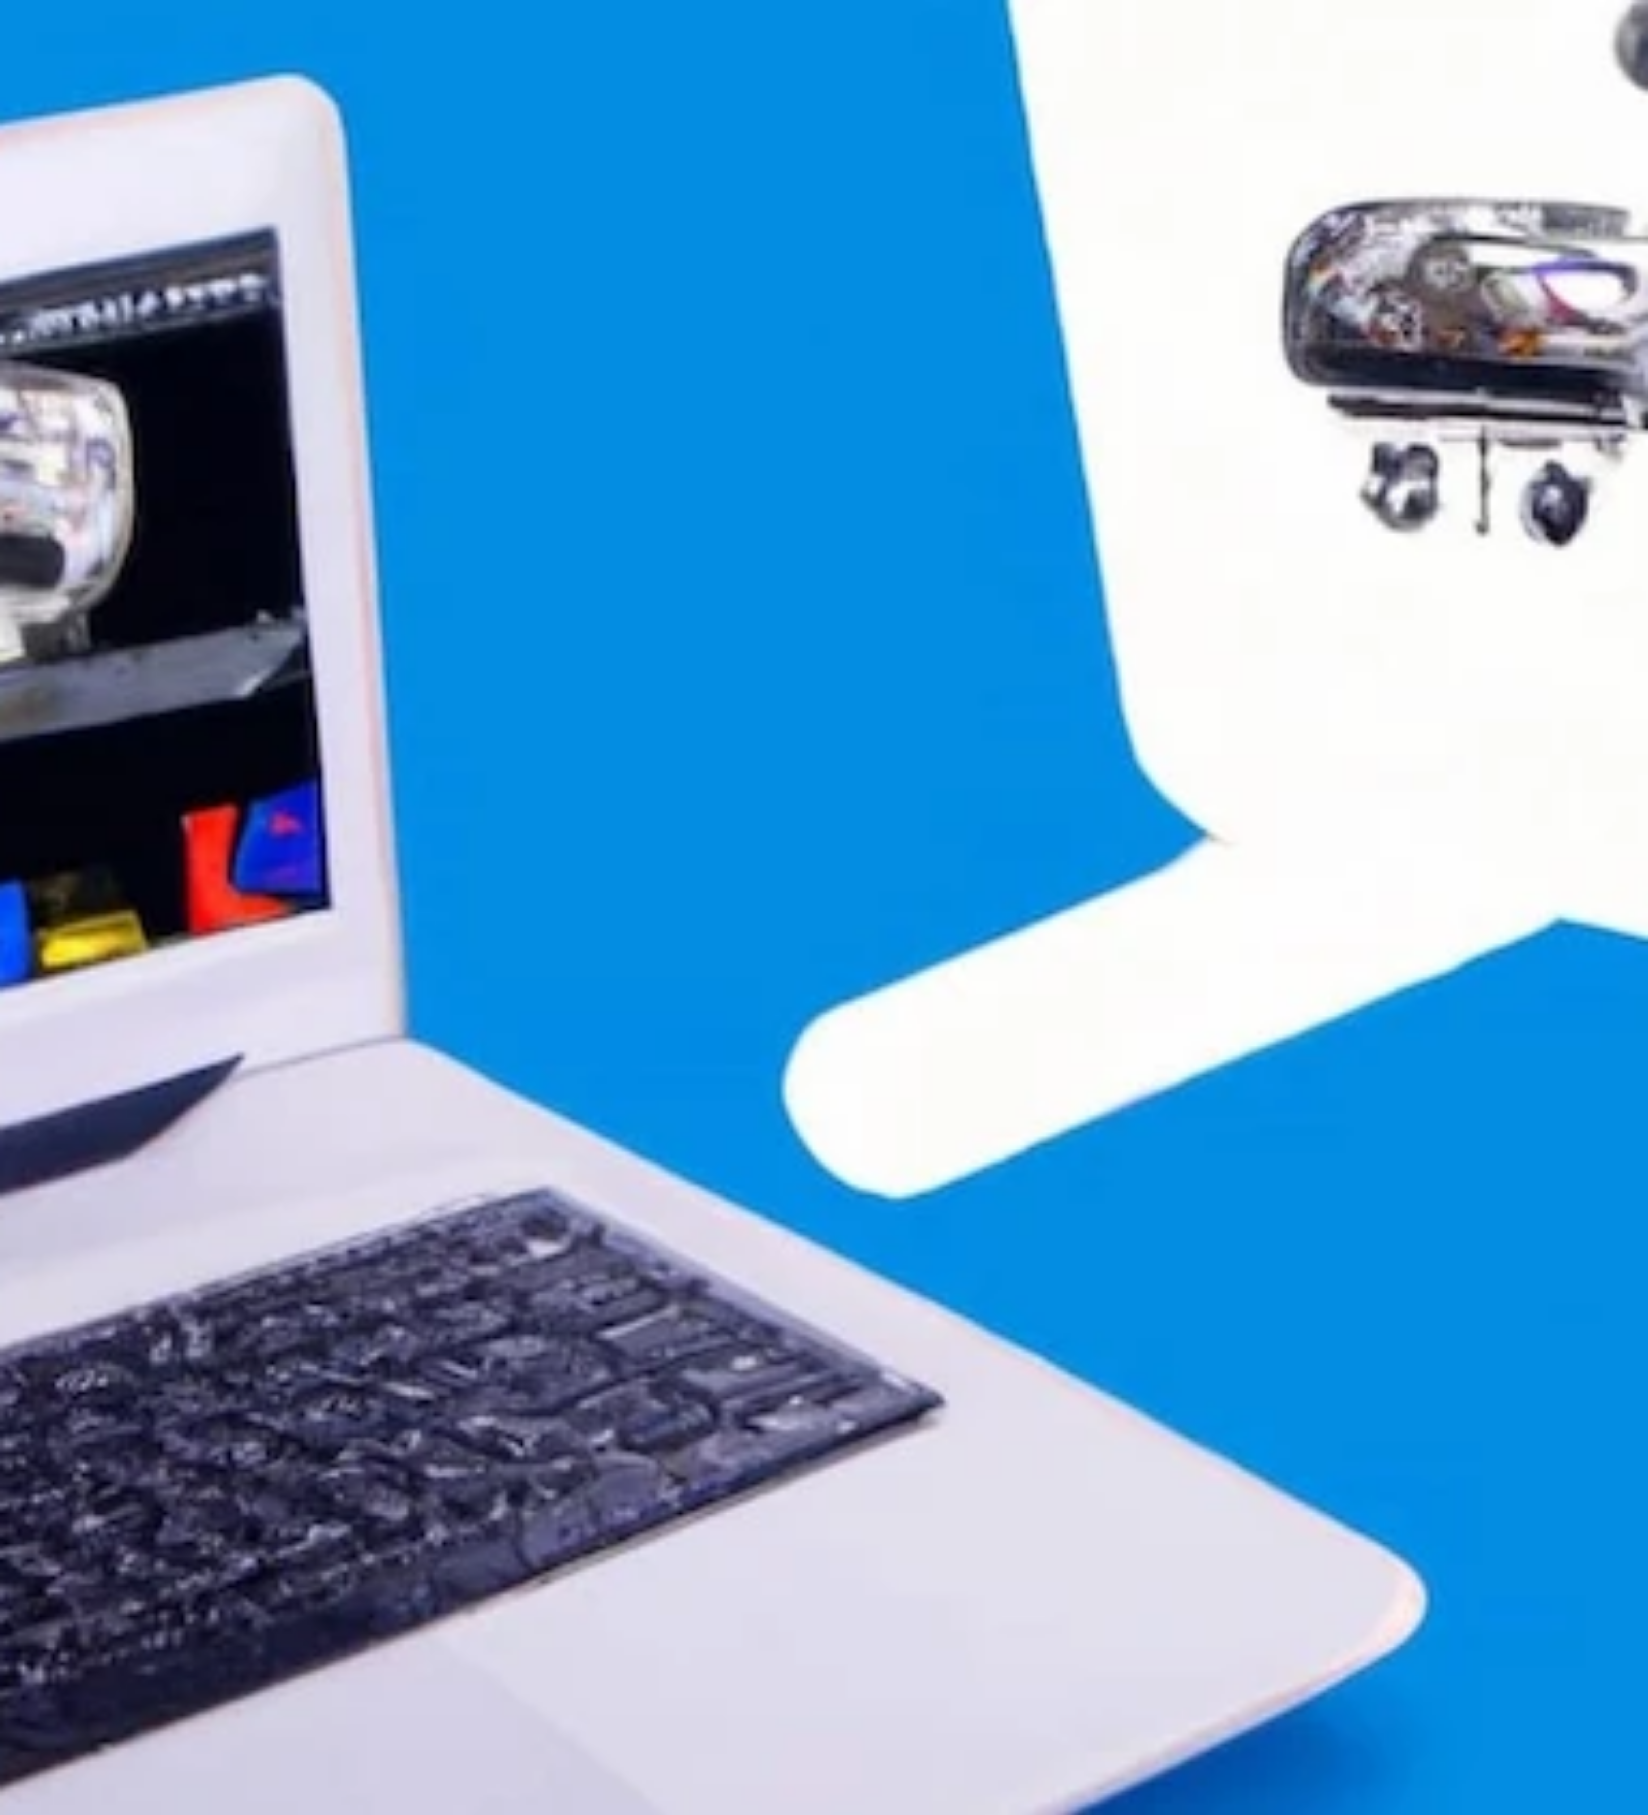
%!PS
<< /PageSize [1648 1815] >> setpagedevice
/rgb { dup -16 bitshift 255 div exch dup -8 bitshift 255 and 255 div exch 255 and 255 div setrgbcolor } def
/picture { 5 dict begin { /h /w /y /x /name } { exch def } forall
  gsave x y translate w h scale
  w h 8 [w 0 0 h 0 0] name (r) file false 3 colorimage grestore end } def
0 1815 translate 1 -1 scale
4 setmiterlimit
16#FFFFFF rgb
0 0 1648 1815 rectfill
(pic1.raw) 0 0 1648 1815 picture
showpage
